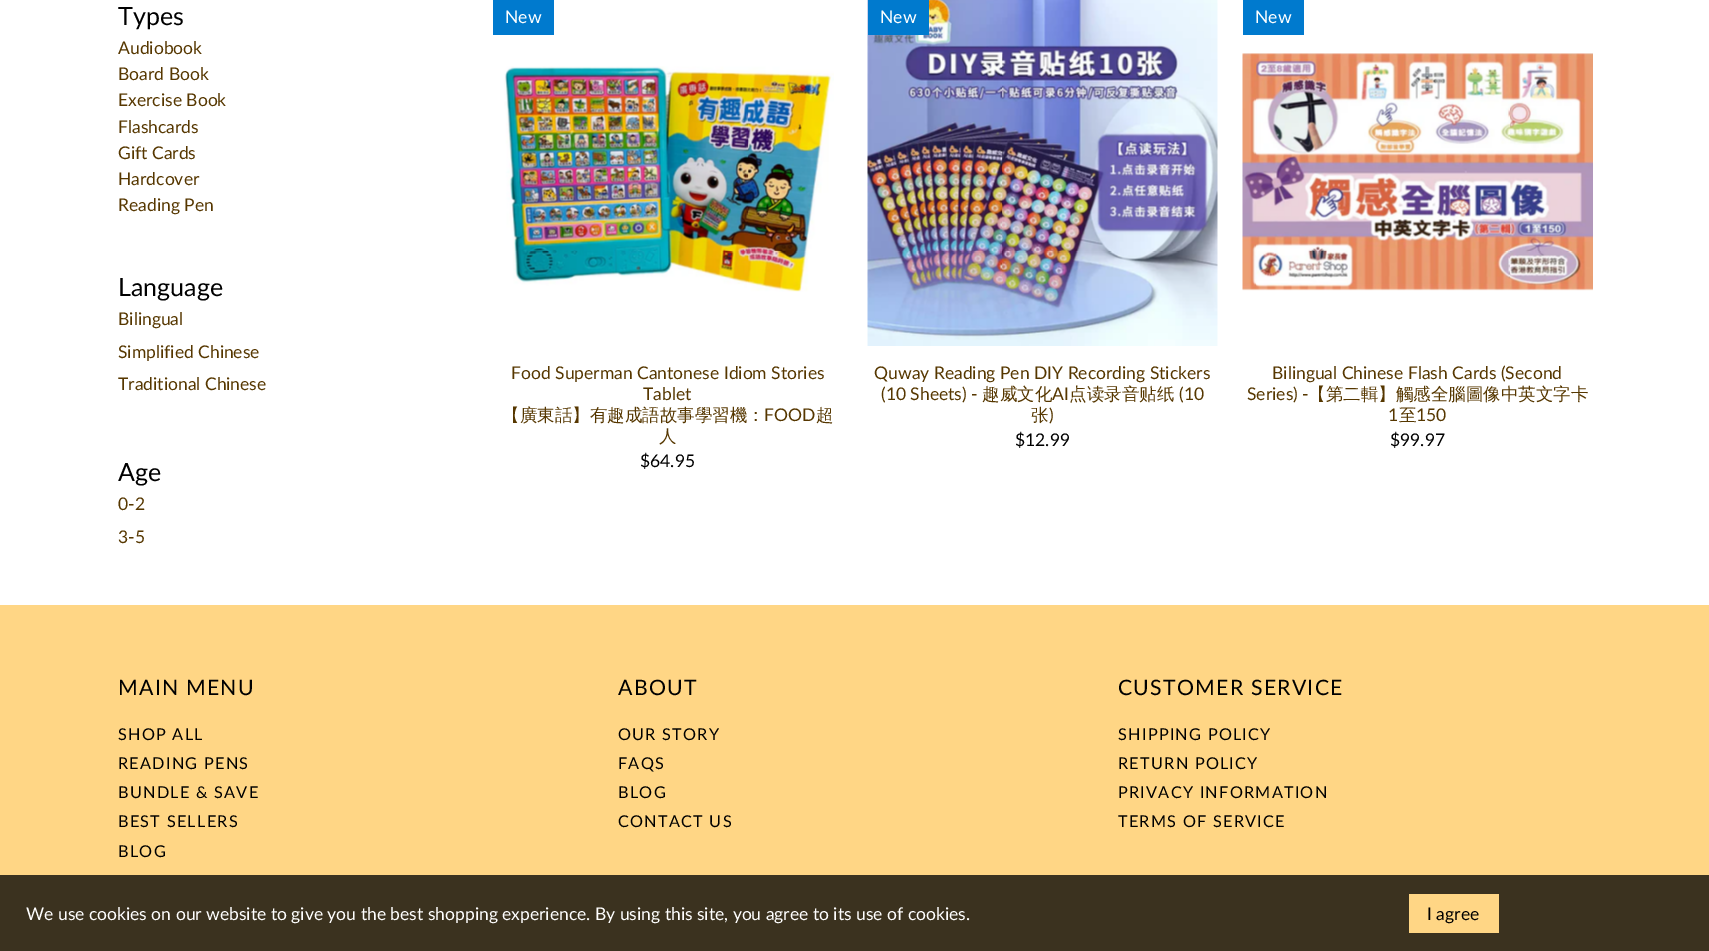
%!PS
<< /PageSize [1709 951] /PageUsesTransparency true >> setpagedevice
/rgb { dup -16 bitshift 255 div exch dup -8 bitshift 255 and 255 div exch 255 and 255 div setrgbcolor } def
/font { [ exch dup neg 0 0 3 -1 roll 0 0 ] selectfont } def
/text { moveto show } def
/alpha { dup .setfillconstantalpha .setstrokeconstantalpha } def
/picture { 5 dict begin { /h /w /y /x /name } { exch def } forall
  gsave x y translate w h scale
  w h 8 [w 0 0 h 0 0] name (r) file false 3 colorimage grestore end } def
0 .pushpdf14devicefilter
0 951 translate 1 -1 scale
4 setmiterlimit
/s1 { /Lato-Regular 25 font 16#000000 rgb } def
/s2 { /Lato-Regular 17.5 font 16#563700 rgb } def
/s3 { /Lato-Regular 17.5 font 16#FFFFFF rgb } def
/s4 { /WenQuanYiZenHei-Medium 17.5 font 16#563700 rgb } def
/s5 { /Lato-Regular 17.5 font 16#000000 rgb } def
16#FFFFFF rgb
0 0 1709 951 rectfill
s1
(Types) 118 25 text
s2
(Audiobook) 118 54 text
(Board Book) 118 80 text
(Exercise Book) 118 106 text
(Flashcards) 118 133 text
(Gift Cards) 118 159 text
(Hardcover) 118 185 text
(Reading Pen) 118 211 text
s1
(Language) 118 296 text
s2
(Bilingual) 118 325 text
(Simplified Chinese) 118 358 text
(Traditional Chinese) 118 390 text
s1
(Age) 118 481 text
s2
(0-2) 118 510 text
(3-5) 118 543 text
16#007ACE rgb
493 0 61 35 rectfill
s3
(New) 505 23 text
(pic1.raw) 504 66 330 226 picture
s2
(Food Superman Cantonese Idiom Stories) 511 379 text
(Tablet) 643 400 text
s4
(【廣東話】有趣成語故事學習機：) 502 421 text
s2
(FOOD) 764 421 text
s4
(超) 816 421 text
(人) 659 442 text
s5
($64.95) 640 467 text
(pic2.raw) 867 0 351 346 picture
16#007ACE rgb
868 0 61 35 rectfill
s3
(New) 880 23 text
s2
(Quway Reading Pen DIY Recording Stickers) 874 379 text
(\(10 Sheets\) -) 881 400 text
s4
(趣威文化) 982 400 text
s2
(AI) 1052 400 text
s4
(点读录音贴纸) 1069 400 text
s2
(\(10) 1179 400 text
s4
(张) 1031 421 text
s2
(\)) 1049 421 text
s5
($12.99) 1015 446 text
16#007ACE rgb
1243 0 61 35 rectfill
s3
(New) 1255 23 text
(pic3.raw) 1242 53 351 238 picture
s2
(Bilingual Chinese Flash Cards \(Second) 1272 379 text
(Series\) -) 1247 400 text
s4
(【第二輯】觸感全腦圖像中英文字卡) 1308 400 text
s2
(1) 1388 421 text
s4
(至) 1399 421 text
s2
(150) 1416 421 text
s5
($99.97) 1390 446 text
16#FFD685 rgb
0 605 1709 346 rectfill
/Lato-Regular 21.25 font
16#000000 rgb
118 695 moveto 1.25 0 (MAIN MENU) ashow
/Lato-Regular 16.25 font
118 740 moveto 1.25 0 (SHOP ALL) ashow
118 769 moveto 1.25 0 (READING PENS) ashow
118 798 moveto 1.25 0 (BUNDLE & SAVE) ashow
118 827 moveto 1.25 0 (BEST SELLERS) ashow
118 857 moveto 1.25 0 (BLOG) ashow
/Lato-Regular 21.25 font
618 695 moveto 1.25 0 (ABOUT) ashow
/Lato-Regular 16.25 font
618 740 moveto 1.25 0 (OUR STORY) ashow
618 769 moveto 1.25 0 (FAQS) ashow
618 798 moveto 1.25 0 (BLOG) ashow
618 827 moveto 1.25 0 (CONTACT US) ashow
/Lato-Regular 21.25 font
1118 695 moveto 1.25 0 (CUSTOMER SERVICE) ashow
/Lato-Regular 16.25 font
1118 740 moveto 1.25 0 (SHIPPING POLICY) ashow
1118 769 moveto 1.25 0 (RETURN POLICY) ashow
1118 798 moveto 1.25 0 (PRIVACY INFORMATION) ashow
1118 827 moveto 1.25 0 (TERMS OF SERVICE) ashow
0.77 alpha
0 875 1709 76 rectfill
1 alpha
s3
(We use cookies on our website to give you the best shopping experience. By using this site, you agree to its use of cookies.) 26 920 text
16#FFD685 rgb
1409 894 90 39 rectfill
s5
(I agree) 1427 920 text
.poppdf14devicefilter showpage
